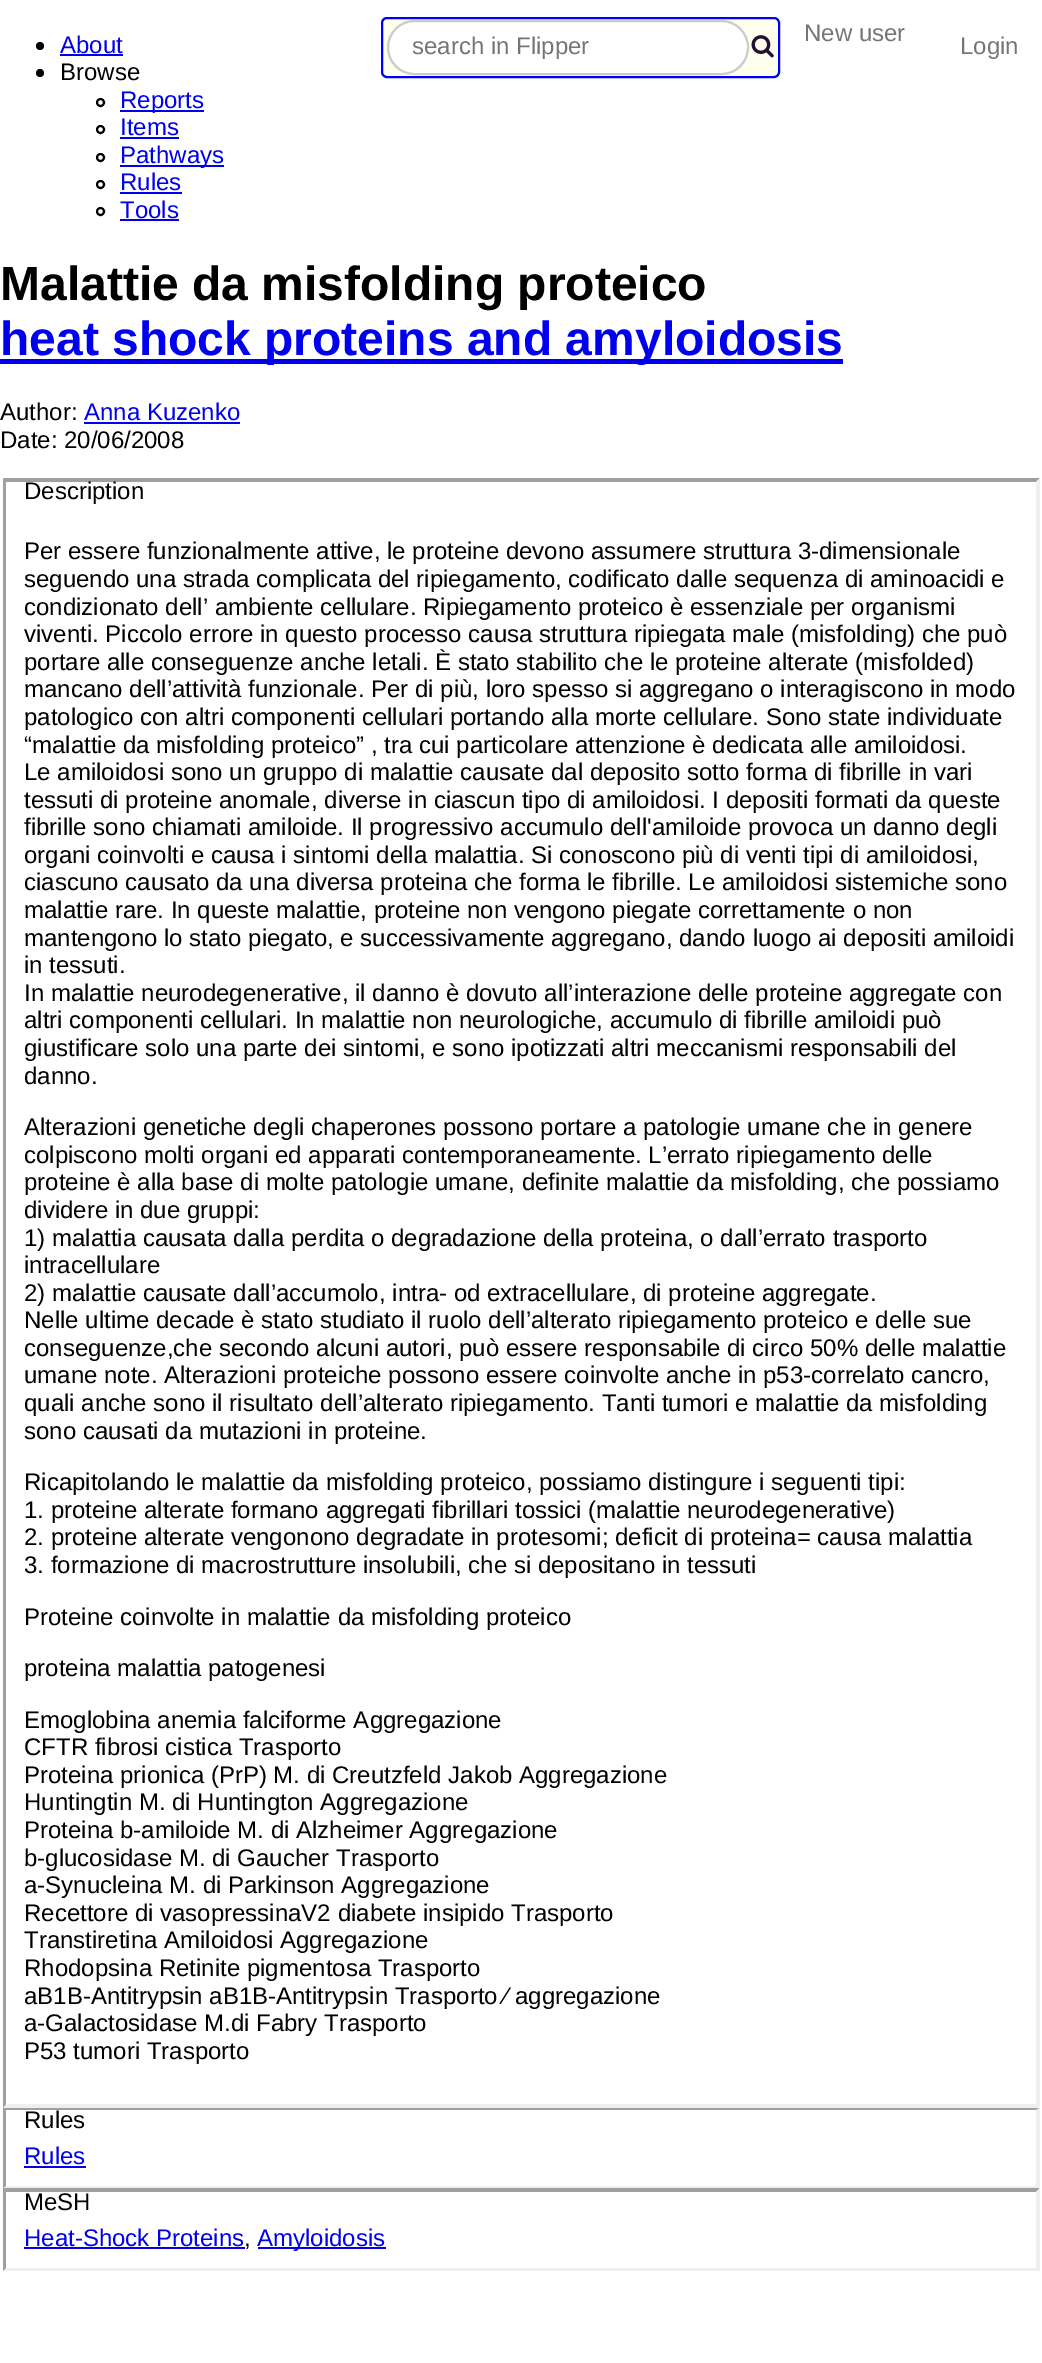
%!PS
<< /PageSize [1042 2363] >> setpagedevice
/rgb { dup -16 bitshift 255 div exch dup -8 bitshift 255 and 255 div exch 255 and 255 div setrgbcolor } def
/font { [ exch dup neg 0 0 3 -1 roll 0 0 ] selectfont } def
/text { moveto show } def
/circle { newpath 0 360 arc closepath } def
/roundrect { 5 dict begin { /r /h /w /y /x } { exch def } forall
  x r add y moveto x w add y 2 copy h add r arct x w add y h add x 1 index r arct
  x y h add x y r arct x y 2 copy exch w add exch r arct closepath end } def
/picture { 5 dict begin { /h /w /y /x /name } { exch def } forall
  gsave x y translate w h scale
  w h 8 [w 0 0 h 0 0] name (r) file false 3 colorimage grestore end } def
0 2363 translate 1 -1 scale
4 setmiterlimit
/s1 { /LiberationSans-Regular 24 font 16#757575 rgb } def
/s2 { /LiberationSans-Regular 24 font 16#0000EE rgb } def
/s3 { /LiberationSans-Regular 24 font 16#000000 rgb } def
/s4 { /LiberationSans-Bold 48 font 16#000000 rgb } def
/s5 { /LiberationSans-Bold 48 font 16#0000EE rgb } def
16#FFFFFF rgb
0 0 1042 2363 rectfill
s1
(New user) 804 41 text
16#FFFFEE rgb
382 18 397 59 5 roundrect gsave fill grestore
16#0000FF rgb
2 setlinewidth
stroke
16#FFFFFF rgb
388 21 360 53 26.5 roundrect gsave fill grestore
16#CCCCCC rgb
stroke
s1
(search in Flipper) 412 54 text
(pic1.raw) 751 35 23 23 picture
(Login) 960 54 text
16#000000 rgb
40 46 4 circle fill
s2
(About) 60 53 text
60 54 63 2 rectfill
16#000000 rgb
40 73 4 circle fill
(Browse) 60 80 text
100.5 102.5 3.5 circle stroke
16#0000EE rgb
120 110 84 2 rectfill
(Reports) 120 108 text
16#000000 rgb
100.5 129.5 3.5 circle stroke
s2
(Items) 120 135 text
120 137 59 2 rectfill
16#000000 rgb
100.5 157.5 3.5 circle stroke
16#0000EE rgb
120 165 104 2 rectfill
(Pathways) 120 163 text
16#000000 rgb
100.5 184.5 3.5 circle stroke
s2
(Rules) 120 190 text
120 192 62 2 rectfill
16#000000 rgb
100.5 211.5 3.5 circle stroke
s2
(Tools) 120 218 text
120 219 59 2 rectfill
s4
(Malattie da misfolding proteico) 0 300 text
16#0000EE rgb
0 359 843 5 rectfill
(heat shock proteins and amyloidosis) 0 355 text
s3
(Author:) 0 420 text
s2
(Anna Kuzenko) 84 420 text
84 422 156 2 rectfill
s3
(Date: 20/06/2008) 0 448 text
16#9F9F9F rgb
3 478 moveto 1040 478 lineto 1036 482 lineto 6 482 lineto closepath fill
16#EFEFEF rgb
1040 478 moveto 1040 2108 lineto 1036 2104 lineto 1036 482 lineto closepath fill
1040 2108 moveto 3 2108 lineto 6 2104 lineto 1036 2104 lineto closepath fill
16#9F9F9F rgb
3 2108 moveto 3 478 lineto 6 482 lineto 6 2104 lineto closepath fill
s3
(Description) 24 499 text
(Per essere funzionalmente attive, le proteine devono assumere struttura 3-dimensionale) 24 559 text
(seguendo una strada complicata del ripiegamento, codificato dalle sequenza di aminoacidi e) 24 587 text
(condizionato dell’ ambiente cellulare. Ripiegamento proteico è essenziale per organismi) 24 615 text
(viventi. Piccolo errore in questo processo causa struttura ripiegata male \(misfolding\) che può) 24 642 text
(portare alle conseguenze anche letali. È stato stabilito che le proteine alterate \(misfolded\)) 24 670 text
(mancano dell’attività funzionale. Per di più, loro spesso si aggregano o interagiscono in modo) 24 697 text
(patologico con altri componenti cellulari portando alla morte cellulare. Sono state individuate) 24 725 text
(“malattie da misfolding proteico” , tra cui particolare attenzione è dedicata alle amiloidosi.) 24 753 text
(Le amiloidosi sono un gruppo di malattie causate dal deposito sotto forma di fibrille in vari) 24 780 text
(tessuti di proteine anomale, diverse in ciascun tipo di amiloidosi. I depositi formati da queste) 24 808 text
(fibrille sono chiamati amiloide. Il progressivo accumulo dell'amiloide provoca un danno degli) 24 835 text
(organi coinvolti e causa i sintomi della malattia. Si conoscono più di venti tipi di amiloidosi,) 24 863 text
(ciascuno causato da una diversa proteina che forma le fibrille. Le amiloidosi sistemiche sono) 24 890 text
(malattie rare. In queste malattie, proteine non vengono piegate correttamente o non) 24 918 text
(mantengono lo stato piegato, e successivamente aggregano, dando luogo ai depositi amiloidi) 24 946 text
(in tessuti.) 24 973 text
(In malattie neurodegenerative, il danno è dovuto all’interazione delle proteine aggregate con) 24 1001 text
(altri componenti cellulari. In malattie non neurologiche, accumulo di fibrille amiloidi può) 24 1028 text
(giustificare solo una parte dei sintomi, e sono ipotizzati altri meccanismi responsabili del) 24 1056 text
(danno.) 24 1084 text
(Alterazioni genetiche degli chaperones possono portare a patologie umane che in genere) 24 1135 text
(colpiscono molti organi ed apparati contemporaneamente. L’errato ripiegamento delle) 24 1163 text
(proteine è alla base di molte patologie umane, definite malattie da misfolding, che possiamo) 24 1190 text
(dividere in due gruppi:) 24 1218 text
(1\) malattia causata dalla perdita o degradazione della proteina, o dall’errato trasporto) 24 1246 text
(intracellulare) 24 1273 text
(2\) malattie causate dall’accumolo, intra- od extracellulare, di proteine aggregate.) 24 1301 text
(Nelle ultime decade è stato studiato il ruolo dell’alterato ripiegamento proteico e delle sue) 24 1328 text
(conseguenze,che secondo alcuni autori, può essere responsabile di circo 50% delle malattie) 24 1356 text
(umane note. Alterazioni proteiche possono essere coinvolte anche in p53-correlato cancro,) 24 1383 text
(quali anche sono il risultato dell’alterato ripiegamento. Tanti tumori e malattie da misfolding) 24 1411 text
(sono causati da mutazioni in proteine.) 24 1439 text
(Ricapitolando le malattie da misfolding proteico, possiamo distingure i seguenti tipi:) 24 1490 text
(1. proteine alterate formano aggregati fibrillari tossici \(malattie neurodegenerative\)) 24 1518 text
(2. proteine alterate vengonono degradate in protesomi; deficit di proteina= causa malattia) 24 1545 text
(3. formazione di macrostrutture insolubili, che si depositano in tessuti) 24 1573 text
(Proteine coinvolte in malattie da misfolding proteico) 24 1625 text
(proteina malattia patogenesi) 24 1676 text
(Emoglobina anemia falciforme Aggregazione) 24 1728 text
(CFTR fibrosi cistica Trasporto) 24 1755 text
(Proteina prionica \(PrP\) M. di Creutzfeld Jakob Aggregazione) 24 1783 text
(Huntingtin M. di Huntington Aggregazione) 24 1810 text
(Proteina b-amiloide M. di Alzheimer Aggregazione) 24 1838 text
(b-glucosidase M. di Gaucher Trasporto) 24 1866 text
(a-Synucleina M. di Parkinson Aggregazione) 24 1893 text
(Recettore di vasopressinaV2 diabete insipido Trasporto) 24 1921 text
(Transtiretina Amiloidosi Aggregazione) 24 1948 text
(Rhodopsina Retinite pigmentosa Trasporto) 24 1976 text
(aB1B-Antitrypsin aB1B-Antitrypsin Trasporto ⁄ aggregazione) 24 2004 text
(a-Galactosidase M.di Fabry Trasporto) 24 2031 text
(P53 tumori Trasporto) 24 2059 text
16#9F9F9F rgb
3 2108 moveto 1040 2108 lineto 1036 2110 lineto 6 2110 lineto closepath fill
16#EFEFEF rgb
1040 2108 moveto 1040 2188 lineto 1036 2186 lineto 1036 2110 lineto closepath fill
1040 2188 moveto 3 2188 lineto 6 2186 lineto 1036 2186 lineto closepath fill
16#9F9F9F rgb
3 2188 moveto 3 2108 lineto 6 2110 lineto 6 2186 lineto closepath fill
s3
(Rules) 24 2128 text
s2
(Rules) 24 2164 text
24 2166 62 2 rectfill
16#9F9F9F rgb
3 2188 moveto 1040 2188 lineto 1036 2192 lineto 6 2192 lineto closepath fill
16#EFEFEF rgb
1040 2188 moveto 1040 2271 lineto 1036 2268 lineto 1036 2192 lineto closepath fill
1040 2271 moveto 3 2271 lineto 6 2268 lineto 1036 2268 lineto closepath fill
16#9F9F9F rgb
3 2271 moveto 3 2188 lineto 6 2192 lineto 6 2268 lineto closepath fill
s3
(MeSH) 24 2210 text
s2
(Heat-Shock Proteins) 24 2246 text
24 2247 221 2 rectfill
s3
(,) 244 2246 text
16#0000EE rgb
258 2247 128 2 rectfill
(Amyloidosis) 257 2246 text
showpage
